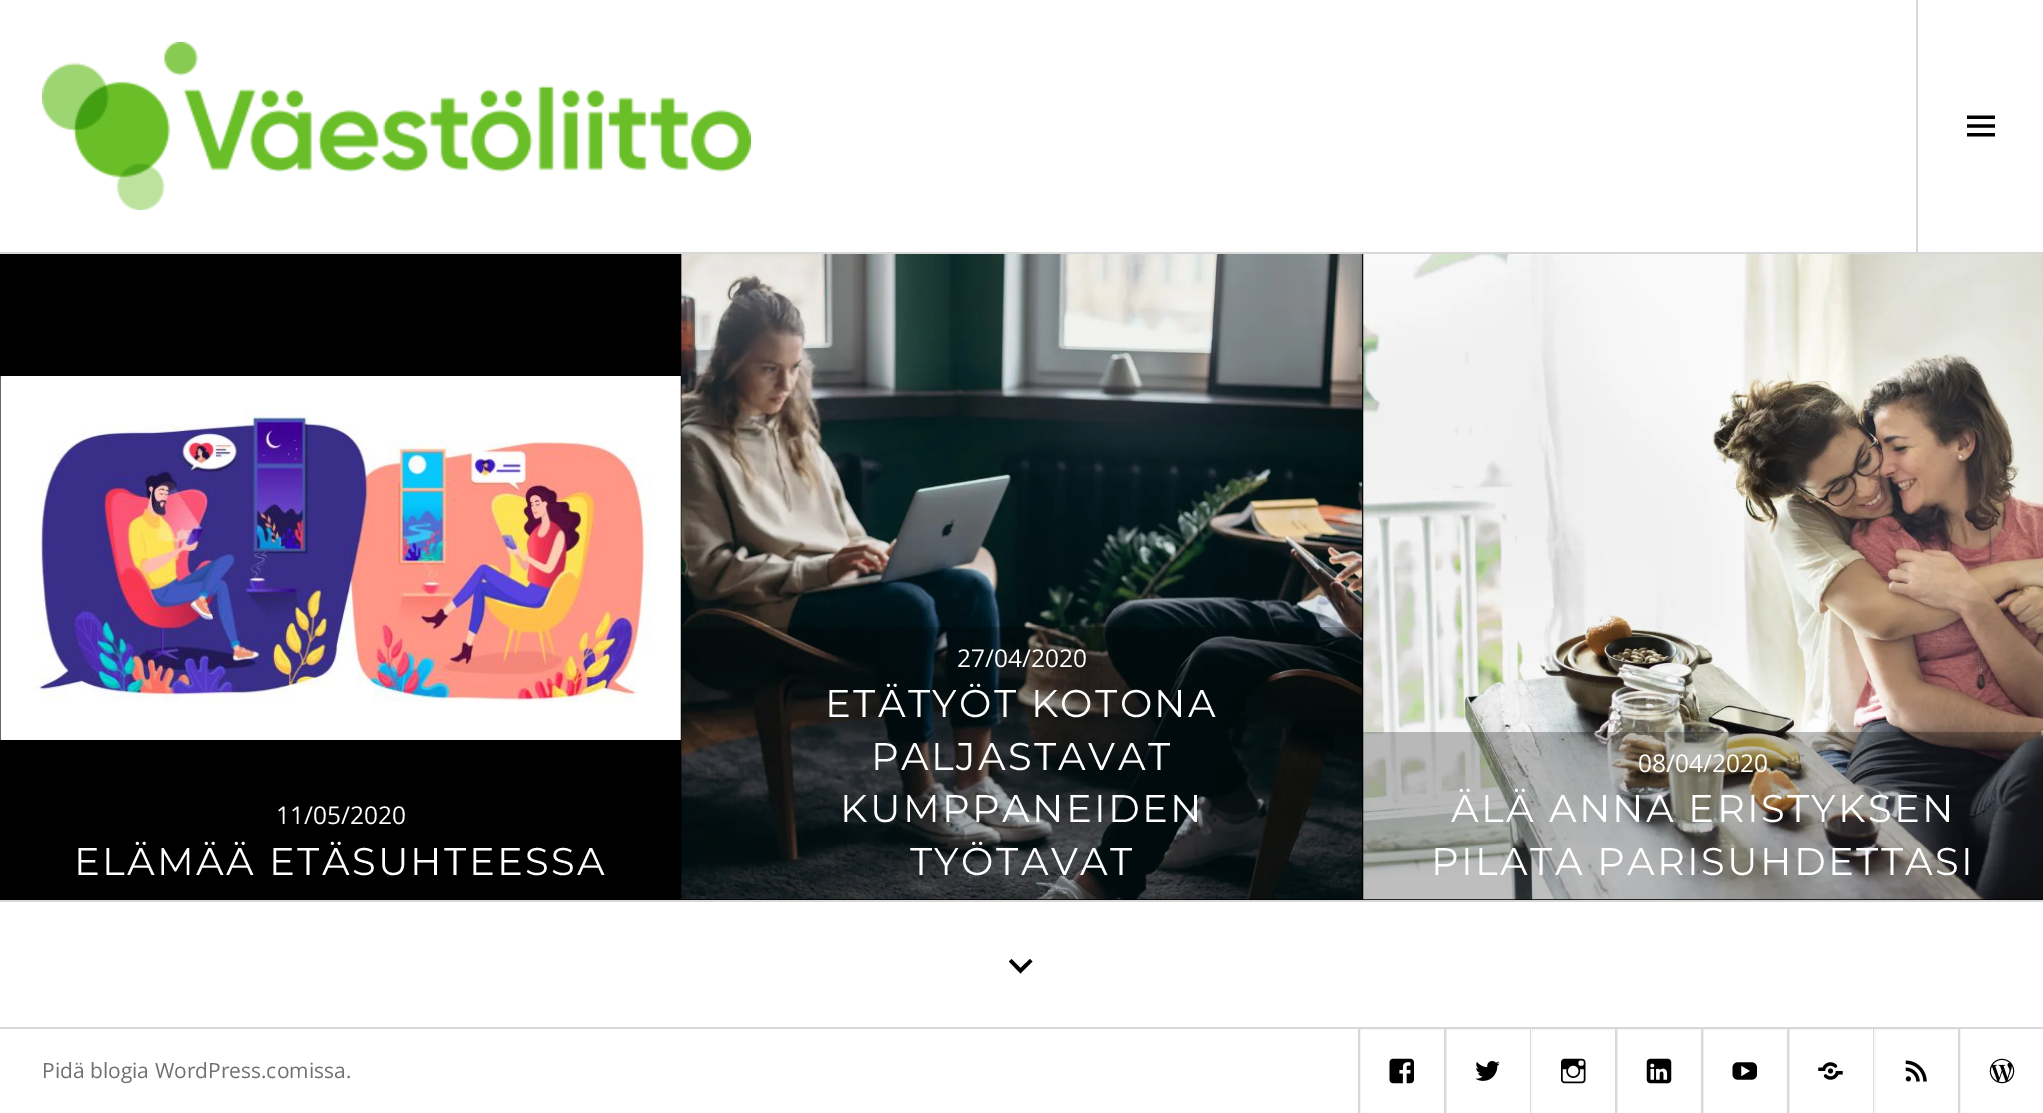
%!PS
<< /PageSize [2043 1113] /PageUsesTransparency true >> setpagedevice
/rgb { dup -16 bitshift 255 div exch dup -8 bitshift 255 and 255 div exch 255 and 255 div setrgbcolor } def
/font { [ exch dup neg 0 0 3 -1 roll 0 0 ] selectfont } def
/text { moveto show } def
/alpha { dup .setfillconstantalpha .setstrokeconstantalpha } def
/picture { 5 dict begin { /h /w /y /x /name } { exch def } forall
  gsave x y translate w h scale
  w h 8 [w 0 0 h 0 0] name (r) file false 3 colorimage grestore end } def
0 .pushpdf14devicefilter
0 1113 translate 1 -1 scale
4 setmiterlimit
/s1 { /OpenSans-Regular 24.5 font 16#FFFFFF rgb } def
/s2 { /OpenSans-Regular 21 font 16#707070 rgb } def
16#FFFFFF rgb
0 0 2043 1113 rectfill
16#D8D8D8 rgb
0 252 2043 2 rectfill
(pic1.raw) 42 42 709 168 picture
1916 0 2 252 rectfill
(pic2.raw) 1967 115 28 22 picture
16#000000 rgb
0 254 2043 646 rectfill
(pic3.raw) 0 376 681 364 picture
s1
(11/05/2020) 276 824 text
/Montserrat-Regular 38.5 font
74 875 moveto 2.4 0 (ELÄMÄÄ ETÄSUHTEESSA) ashow
(pic4.raw) 681 254 682 646 picture
0.25 alpha
16#000000 rgb
681 627 682 273 rectfill
1 alpha
s1
(27/04/2020) 957 667 text
/Montserrat-Regular 38.5 font
825 717 moveto 2.4 0 (ETÄTYÖT KOTONA) ashow
871 770 moveto 2.4 0 (PALJASTAVAT) ashow
840 822 moveto 2.4 0 (KUMPPANEIDEN) ashow
910 875 moveto 2.4 0 (TYÖTAVAT) ashow
(pic5.raw) 1363 254 680 646 picture
0.25 alpha
16#000000 rgb
1363 732 680 168 rectfill
1 alpha
s1
(08/04/2020) 1638 772 text
/Montserrat-Regular 38.5 font
1451 822 moveto 2.4 0 (ÄLÄ ANNA ERISTYKSEN) ashow
1431 875 moveto 2.4 0 (PILATA PARISUHDETTASI) ashow
16#D8D8D8 rgb
0 900 2043 2 rectfill
16#000000 rgb
1030 959 moveto 1032.5 961.5 lineto 1020.5 973.5 lineto 1009 961.5 lineto 1011.5 959 lineto 1020.5 968 lineto closepath fill
16#D8D8D8 rgb
0 1027 2043 2 rectfill
s2
(Pidä blogia WordPress.comissa.) 42 1078 text
gsave
0 1029 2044 84 rectclip
16#D8D8D8 rgb
2 setlinewidth
1359 1028 86 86 rectstroke
grestore
(pic6.raw) 1389 1058 25 26 picture
gsave
0 1029 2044 84 rectclip
16#D8D8D8 rgb
2 setlinewidth
1445 1028 85 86 rectstroke
grestore
16#FFFFFF rgb
1529 1029 1 84 rectfill
(pic7.raw) 1475 1061 25 20 picture
gsave
0 1029 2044 84 rectclip
16#D8D8D8 rgb
2 setlinewidth
1531 1028 85 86 rectstroke
grestore
1531 1029 1 84 rectfill
(pic8.raw) 1561 1058 25 26 picture
gsave
0 1029 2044 84 rectclip
16#D8D8D8 rgb
2 setlinewidth
1616 1028 86 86 rectstroke
grestore
(pic9.raw) 1646 1058 26 26 picture
gsave
0 1029 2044 84 rectclip
16#D8D8D8 rgb
2 setlinewidth
1702 1028 86 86 rectstroke
grestore
(pic10.raw) 1732 1062 25 18 picture
gsave
0 1029 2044 84 rectclip
16#D8D8D8 rgb
2 setlinewidth
1788 1028 85 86 rectstroke
grestore
1872 1029 1 84 rectfill
(pic11.raw) 1818 1062 25 18 picture
gsave
0 1029 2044 84 rectclip
16#D8D8D8 rgb
2 setlinewidth
1874 1028 85 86 rectstroke
grestore
1874 1029 1 84 rectfill
(pic12.raw) 1905 1060 22 22 picture
(pic13.raw) 1989 1058 26 26 picture
.poppdf14devicefilter showpage
